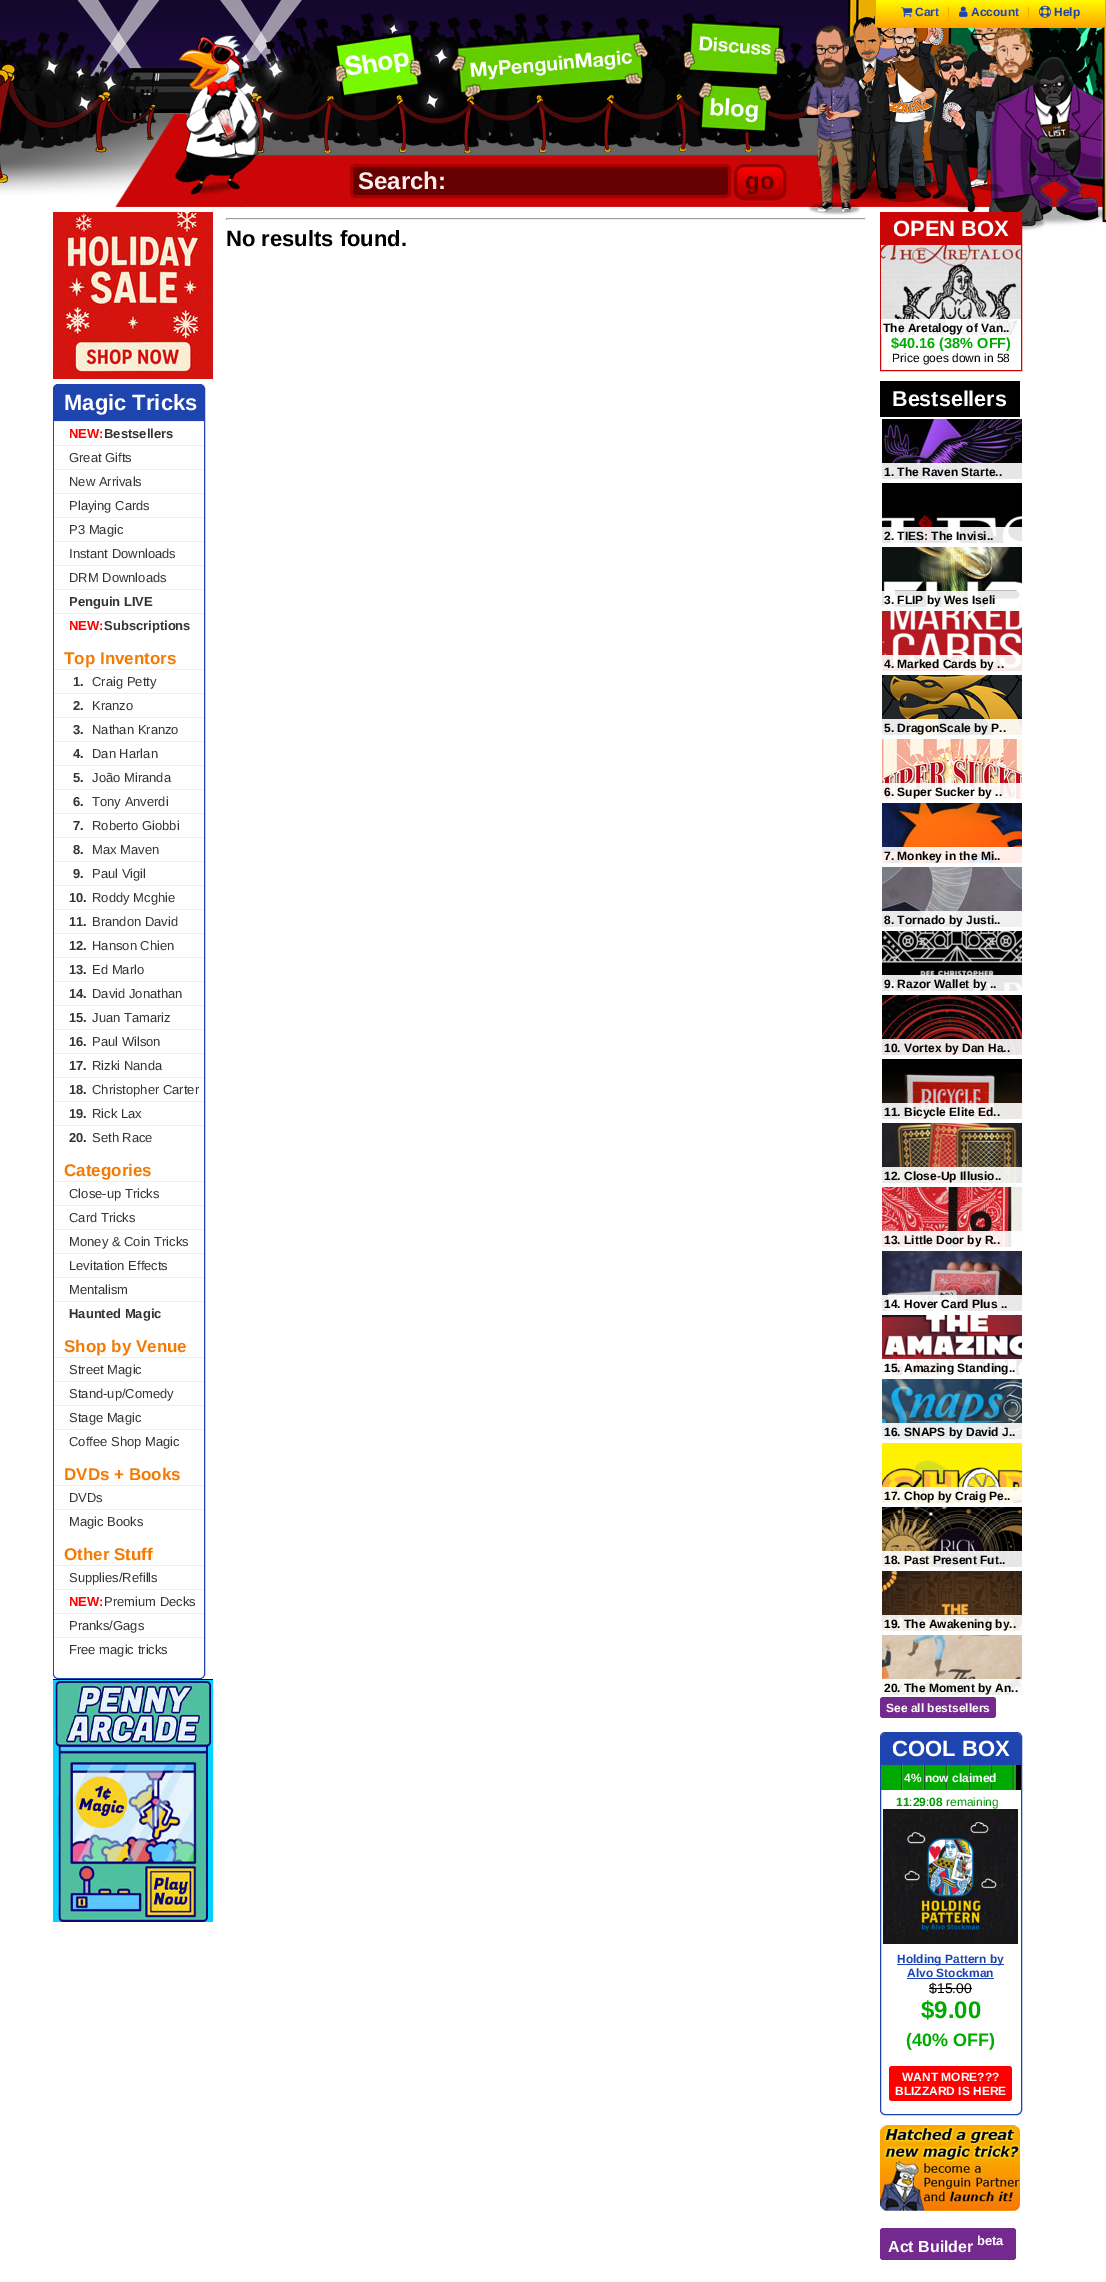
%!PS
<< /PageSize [1106 2282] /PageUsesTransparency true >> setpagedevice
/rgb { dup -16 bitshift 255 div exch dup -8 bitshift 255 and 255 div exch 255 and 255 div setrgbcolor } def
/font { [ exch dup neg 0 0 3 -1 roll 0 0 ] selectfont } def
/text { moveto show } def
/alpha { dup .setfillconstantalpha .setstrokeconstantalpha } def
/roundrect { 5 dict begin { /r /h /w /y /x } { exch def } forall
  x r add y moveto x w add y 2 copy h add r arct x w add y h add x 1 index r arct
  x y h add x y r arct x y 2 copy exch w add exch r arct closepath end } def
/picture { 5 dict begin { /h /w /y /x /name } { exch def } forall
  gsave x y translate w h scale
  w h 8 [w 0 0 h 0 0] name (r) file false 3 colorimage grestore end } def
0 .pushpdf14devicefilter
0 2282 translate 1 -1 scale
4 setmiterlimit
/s1 { /LiberationSans-Bold 12 font 16#1E44AF rgb } def
/s2 { /LiberationSans-Regular 12 font 16#FFA500 rgb } def
/s3 { /LiberationSans-Bold 24 font 16#FFEEEE rgb } def
/s4 { /LiberationSans-Bold 24 font 16#660000 rgb } def
/s5 { /LiberationSans-Bold 22 font 16#000000 rgb } def
/s6 { /LiberationSans-Bold 22 font 16#FFFFFF rgb } def
/s7 { /LiberationSans-Bold 12 font 16#000000 rgb } def
/s8 { /LiberationSans-Bold 14.5 font 16#00AA00 rgb } def
/s9 { /LiberationSans-Regular 12 font 16#000000 rgb } def
/s10 { /LiberationSans-Bold 21.5 font 16#FFFFFF rgb } def
/s11 { /LiberationSans-Bold 12 font 16#FFFFFF rgb } def
/s12 { /LiberationSans-Regular 12 font 16#009900 rgb } def
/s13 { /LiberationSans-Bold 12 font 16#009900 rgb } def
/s14 { /LiberationSans-Regular 14 font 16#000000 rgb } def
/s15 { /LiberationSans-Bold 24 font 16#00AA00 rgb } def
/s16 { /LiberationSans-Bold 18 font 16#00AA00 rgb } def
/s17 { /LiberationSans-Bold 16 font 16#FFFFFF rgb } def
/s18 { /LiberationSans-Bold 13 font 16#FFFFFF rgb } def
/s19 { /LiberationSans-Bold 13 font 16#FF0000 rgb } def
/s20 { /LiberationSans-Bold 13 font 16#333333 rgb } def
/s21 { /LiberationSans-Regular 13 font 16#333333 rgb } def
/s22 { /LiberationSans-Bold 17 font 16#F47900 rgb } def
16#FFFFFF rgb
0 0 1106 2282 rectfill
(pic1.raw) 0 0 1106 231 picture
gsave
875 0 moveto 1106 0 lineto 1106 23 lineto 1106 26 1104 28 1101 28 curveto 880 28 lineto 877 28 875 26 875 23 curveto closepath clip newpath
gsave 875 0 moveto 1106 0 lineto 1106 27 lineto 875 27 lineto closepath clip newpath
<< /ShadingType 2 /ColorSpace /DeviceRGB /Coords [876 0 876 27] /Extend [true true] /Function << /FunctionType 2 /Domain [0 1] /C0 [1 0.984 0] /C1 [1 0.651 0] /N 1 >> >> shfill grestore
grestore
16#FFA500 rgb
875 0 moveto 1106 0 lineto 1106 23 lineto 1106 26 1104 28 1101 28 curveto 880 28 lineto 877 28 875 26 875 23 curveto closepath 876 0 moveto 1105 0 lineto 1105 23 lineto 1105 25 1103 27 1101 27 curveto 880 27 lineto 878 27 876 25 876 23 curveto closepath eofill
(pic2.raw) 901 7 12 10 picture
s1
(Cart) 915 16 text
s2
(|) 947 16 text
(pic3.raw) 959 6 9 11 picture
s1
(Account) 971 16 text
s2
(|) 1027 16 text
(pic4.raw) 1039 5 12 13 picture
s1
(Help) 1054 16 text
(pic5.raw) 175 35 85 160 picture
(pic6.raw) 335 31 87 67 picture
(pic7.raw) 451 33 198 66 picture
(pic8.raw) 683 20 103 56 picture
(pic9.raw) 698 82 74 51 picture
16#660000 rgb
351.5 165.5 378 31 3.5 roundrect gsave fill grestore
16#AA0000 rgb
3 setlinewidth
stroke
s3
(Search:) 358 189 text
gsave
734 164 52 36 10 roundrect clip newpath
gsave 734 167 moveto 786 167 lineto 786 197 lineto 734 197 lineto closepath clip newpath
<< /ShadingType 2 /ColorSpace /DeviceRGB /Coords [737 167 737 197] /Extend [true true] /Function << /FunctionType 2 /Domain [0 1] /C0 [1 0 0] /C1 [0.667 0 0] /N 1 >> >> shfill grestore
grestore
16#990000 rgb
735.5 165.5 49 33 8.5 roundrect stroke
s4
(go) 745 189 text
16#9F9F9F rgb
226 218 640 1 rectfill
16#EEEEEE rgb
865 218 1 2 rectfill
226 219 640 1 rectfill
16#9F9F9F rgb
226 218 1 2 rectfill
s5
(No results found.) 226 246 text
16#CC0606 rgb
1 setlinewidth
880.5 212.5 141 158 rectstroke
881 213 140 32 rectfill
s6
(OPEN BOX) 893 236 text
(pic10.raw) 881 245 140 90 picture
0.9 alpha
881 319 140 16 rectfill
1 alpha
s7
(The Aretalogy of Van..) 883 332 text
s8
($40.16 \(38% OFF\)) 891 348 text
s9
(Price goes down in 58) 892 362 text
880 381 140 36 rectfill
s10
(Bestsellers) 892 406 text
(pic11.raw) 882 419 140 60 picture
0.9 alpha
882 463 140 16 rectfill
1 alpha
s7
(1. The Raven Starte..) 884 476 text
(pic12.raw) 882 483 140 60 picture
0.9 alpha
16#FFFFFF rgb
882 527 140 16 rectfill
1 alpha
s7
(2. TIES: The Invisi..) 884 540 text
(pic13.raw) 882 547 140 60 picture
0.9 alpha
16#FFFFFF rgb
882 591 140 16 rectfill
1 alpha
s7
(3. FLIP by Wes Iseli) 884 604 text
(pic14.raw) 882 611 140 60 picture
0.9 alpha
16#FFFFFF rgb
882 655 140 16 rectfill
1 alpha
s7
(4. Marked Cards by ..) 884 668 text
(pic15.raw) 882 675 140 60 picture
0.9 alpha
16#FFFFFF rgb
882 719 140 16 rectfill
1 alpha
s7
(5. DragonScale by P..) 884 732 text
(pic16.raw) 882 739 140 60 picture
0.9 alpha
16#FFFFFF rgb
882 783 140 16 rectfill
1 alpha
s7
(6. Super Sucker by ..) 884 796 text
(pic17.raw) 882 803 140 60 picture
0.9 alpha
16#FFFFFF rgb
882 847 140 16 rectfill
1 alpha
s7
(7. Monkey in the Mi..) 884 860 text
(pic18.raw) 882 867 140 60 picture
0.9 alpha
16#FFFFFF rgb
882 911 140 16 rectfill
1 alpha
s7
(8. Tornado by Justi..) 884 924 text
(pic19.raw) 882 931 140 60 picture
0.9 alpha
16#FFFFFF rgb
882 975 140 16 rectfill
1 alpha
s7
(9. Razor Wallet by ..) 884 988 text
(pic20.raw) 882 995 140 60 picture
0.9 alpha
16#FFFFFF rgb
882 1039 140 16 rectfill
1 alpha
s7
(10. Vortex by Dan Ha..) 884 1052 text
(pic21.raw) 882 1059 140 60 picture
0.9 alpha
16#FFFFFF rgb
882 1103 140 16 rectfill
1 alpha
s7
(11. Bicycle Elite Ed..) 884 1116 text
(pic22.raw) 882 1123 140 60 picture
0.9 alpha
16#FFFFFF rgb
882 1167 140 16 rectfill
1 alpha
s7
(12. Close-Up Illusio..) 884 1180 text
(pic23.raw) 882 1187 140 60 picture
0.9 alpha
16#FFFFFF rgb
882 1231 140 16 rectfill
1 alpha
s7
(13. Little Door by R..) 884 1244 text
(pic24.raw) 882 1251 140 60 picture
0.9 alpha
16#FFFFFF rgb
882 1295 140 16 rectfill
1 alpha
s7
(14. Hover Card Plus ..) 884 1308 text
(pic25.raw) 882 1315 140 60 picture
0.9 alpha
16#FFFFFF rgb
882 1359 140 16 rectfill
1 alpha
s7
(15. Amazing Standing..) 884 1372 text
(pic26.raw) 882 1379 140 60 picture
0.9 alpha
16#FFFFFF rgb
882 1423 140 16 rectfill
1 alpha
s7
(16. SNAPS by David J..) 884 1436 text
(pic27.raw) 882 1443 140 60 picture
0.9 alpha
16#FFFFFF rgb
882 1487 140 16 rectfill
1 alpha
s7
(17. Chop by Craig Pe..) 884 1500 text
(pic28.raw) 882 1507 140 60 picture
0.9 alpha
16#FFFFFF rgb
882 1551 140 16 rectfill
1 alpha
s7
(18. Past Present Fut..) 884 1564 text
(pic29.raw) 882 1571 140 60 picture
0.9 alpha
16#FFFFFF rgb
882 1615 140 16 rectfill
1 alpha
s7
(19. The Awakening by..) 884 1628 text
(pic30.raw) 882 1635 140 60 picture
0.9 alpha
16#FFFFFF rgb
882 1679 140 16 rectfill
1 alpha
s7
(20. The Moment by An..) 884 1692 text
16#74298F rgb
880 1697 116 21 3 roundrect fill
s11
(See all bestsellers) 886 1712 text
16#1E44AF rgb
880.5 1732.5 141 382 4.5 roundrect stroke
gsave
881 1733 140 381 4 roundrect clip newpath
886 1733 moveto 1016 1733 lineto 1019 1733 1021 1735 1021 1738 curveto 1021 1765 lineto 881 1765 lineto 881 1738 lineto 881 1735 883 1733 886 1733 curveto closepath fill
grestore
s6
(COOL BOX) 892 1756 text
16#000000 rgb
1016 1765 5 25 rectfill
16#00AA00 rgb
881 1765 135 25 rectfill
(pic31.raw) 901 1765 114 25 picture
s11
(4% now claimed) 904 1782 text
s12
(:) 909 1806 text
(:) 926 1806 text
s13
(11 29 08) 896 1806 text
s12
(remaining) 946 1806 text
(pic32.raw) 883 1809 135 135 picture
16#1E44AF rgb
897 1964 107 1 rectfill
s1
(Holding Pattern by) 897 1963 text
(Alvo Stockman) 907 1977 text
907 1978 87 1 rectfill
s14
($15.00) 929 1993 text
929 1988 43 1 rectfill
s15
($9.00) 921 2018 text
s16
(\(40% OFF\)) 906 2046 text
16#FF0000 rgb
889 2066 123 35 3 roundrect fill
s11
(WANT MORE???) 902 2081 text
(BLIZZARD IS HERE) 895 2095 text
(pic33.raw) 880 2125 140 86 picture
16#74298F rgb
880 2228 136 32 3 roundrect fill
s17
(Act Builder) 888 2252 text
s18
(beta) 977 2245 text
(pic34.raw) 53 212 160 167 picture
16#1E44AF rgb
53.5 384.5 151 1294 4.5 roundrect gsave fill grestore
stroke
s6
(Magic Tricks) 64 410 text
gsave
54 385 150 1293 4 roundrect clip newpath
54 421 moveto 204 421 lineto 204 1673 lineto 204 1676 202 1678 199 1678 curveto 59 1678 lineto 56 1678 54 1676 54 1673 curveto closepath fill
grestore
16#EEEEEE rgb
54 421 150 1 rectfill
s19
(NEW:) 69 438 text
s20
(Bestsellers) 104 438 text
16#EEEEEE rgb
54 445 150 1 rectfill
s21
(Great Gifts) 69 462 text
16#EEEEEE rgb
54 469 150 1 rectfill
s21
(New Arrivals) 69 486 text
16#EEEEEE rgb
54 493 150 1 rectfill
s21
(Playing Cards) 69 510 text
16#EEEEEE rgb
54 517 150 1 rectfill
s21
(P3 Magic) 69 534 text
16#EEEEEE rgb
54 541 150 1 rectfill
s21
(Instant Downloads) 69 558 text
16#EEEEEE rgb
54 565 150 1 rectfill
s21
(DRM Downloads) 69 582 text
16#EEEEEE rgb
54 589 150 1 rectfill
s20
(Penguin LIVE) 69 606 text
16#EEEEEE rgb
54 613 150 1 rectfill
s19
(NEW:) 69 630 text
s20
(Subscriptions) 104 630 text
s22
(Top Inventors) 64 664 text
16#EEEEEE rgb
54 669 150 1 rectfill
s20
(1.) 73 686 text
s21
(Craig Petty) 92 686 text
16#EEEEEE rgb
54 693 150 1 rectfill
s20
(2.) 73 710 text
s21
(Kranzo) 92 710 text
16#EEEEEE rgb
54 717 150 1 rectfill
s20
(3.) 73 734 text
s21
(Nathan Kranzo) 92 734 text
16#EEEEEE rgb
54 741 150 1 rectfill
s20
(4.) 73 758 text
s21
(Dan Harlan) 92 758 text
16#EEEEEE rgb
54 765 150 1 rectfill
s20
(5.) 73 782 text
s21
(João Miranda) 92 782 text
16#EEEEEE rgb
54 789 150 1 rectfill
s20
(6.) 73 806 text
s21
(Tony Anverdi) 92 806 text
16#EEEEEE rgb
54 813 150 1 rectfill
s20
(7.) 73 830 text
s21
(Roberto Giobbi) 92 830 text
16#EEEEEE rgb
54 837 150 1 rectfill
s20
(8.) 73 854 text
s21
(Max Maven) 92 854 text
16#EEEEEE rgb
54 861 150 1 rectfill
s20
(9.) 73 878 text
s21
(Paul Vigil) 92 878 text
16#EEEEEE rgb
54 885 150 1 rectfill
s20
(10.) 69 902 text
s21
(Roddy Mcghie) 92 902 text
16#EEEEEE rgb
54 909 150 1 rectfill
s20
(11.) 69 926 text
s21
(Brandon David) 92 926 text
16#EEEEEE rgb
54 933 150 1 rectfill
s20
(12.) 69 950 text
s21
(Hanson Chien) 92 950 text
16#EEEEEE rgb
54 957 150 1 rectfill
s20
(13.) 69 974 text
s21
(Ed Marlo) 92 974 text
16#EEEEEE rgb
54 981 150 1 rectfill
s20
(14.) 69 998 text
s21
(David Jonathan) 92 998 text
16#EEEEEE rgb
54 1005 150 1 rectfill
s20
(15.) 69 1022 text
s21
(Juan Tamariz) 92 1022 text
16#EEEEEE rgb
54 1029 150 1 rectfill
s20
(16.) 69 1046 text
s21
(Paul Wilson) 92 1046 text
16#EEEEEE rgb
54 1053 150 1 rectfill
s20
(17.) 69 1070 text
s21
(Rizki Nanda) 92 1070 text
16#EEEEEE rgb
54 1077 150 1 rectfill
s20
(18.) 69 1094 text
s21
(Christopher Carter) 92 1094 text
16#EEEEEE rgb
54 1101 150 1 rectfill
s20
(19.) 69 1118 text
s21
(Rick Lax) 92 1118 text
16#EEEEEE rgb
54 1125 150 1 rectfill
s20
(20.) 69 1142 text
s21
(Seth Race) 92 1142 text
s22
(Categories) 64 1176 text
16#EEEEEE rgb
54 1181 150 1 rectfill
s21
(Close-up Tricks) 69 1198 text
16#EEEEEE rgb
54 1205 150 1 rectfill
s21
(Card Tricks) 69 1222 text
16#EEEEEE rgb
54 1229 150 1 rectfill
s21
(Money & Coin Tricks) 69 1246 text
16#EEEEEE rgb
54 1253 150 1 rectfill
s21
(Levitation Effects) 69 1270 text
16#EEEEEE rgb
54 1277 150 1 rectfill
s21
(Mentalism) 69 1294 text
16#EEEEEE rgb
54 1301 150 1 rectfill
s20
(Haunted Magic) 69 1318 text
s22
(Shop by Venue) 64 1352 text
16#EEEEEE rgb
54 1357 150 1 rectfill
s21
(Street Magic) 69 1374 text
16#EEEEEE rgb
54 1381 150 1 rectfill
s21
(Stand-up/Comedy) 69 1398 text
16#EEEEEE rgb
54 1405 150 1 rectfill
s21
(Stage Magic) 69 1422 text
16#EEEEEE rgb
54 1429 150 1 rectfill
s21
(Coffee Shop Magic) 69 1446 text
s22
(DVDs + Books) 64 1480 text
16#EEEEEE rgb
54 1485 150 1 rectfill
s21
(DVDs) 69 1502 text
16#EEEEEE rgb
54 1509 150 1 rectfill
s21
(Magic Books) 69 1526 text
s22
(Other Stuff) 64 1560 text
16#EEEEEE rgb
54 1565 150 1 rectfill
s21
(Supplies/Refills) 69 1582 text
16#EEEEEE rgb
54 1589 150 1 rectfill
s19
(NEW:) 69 1606 text
s21
(Premium Decks) 104 1606 text
16#EEEEEE rgb
54 1613 150 1 rectfill
s21
(Pranks/Gags) 69 1630 text
16#EEEEEE rgb
54 1637 150 1 rectfill
s21
(Free magic tricks) 69 1654 text
(pic35.raw) 53 1679 160 243 picture
.poppdf14devicefilter showpage
